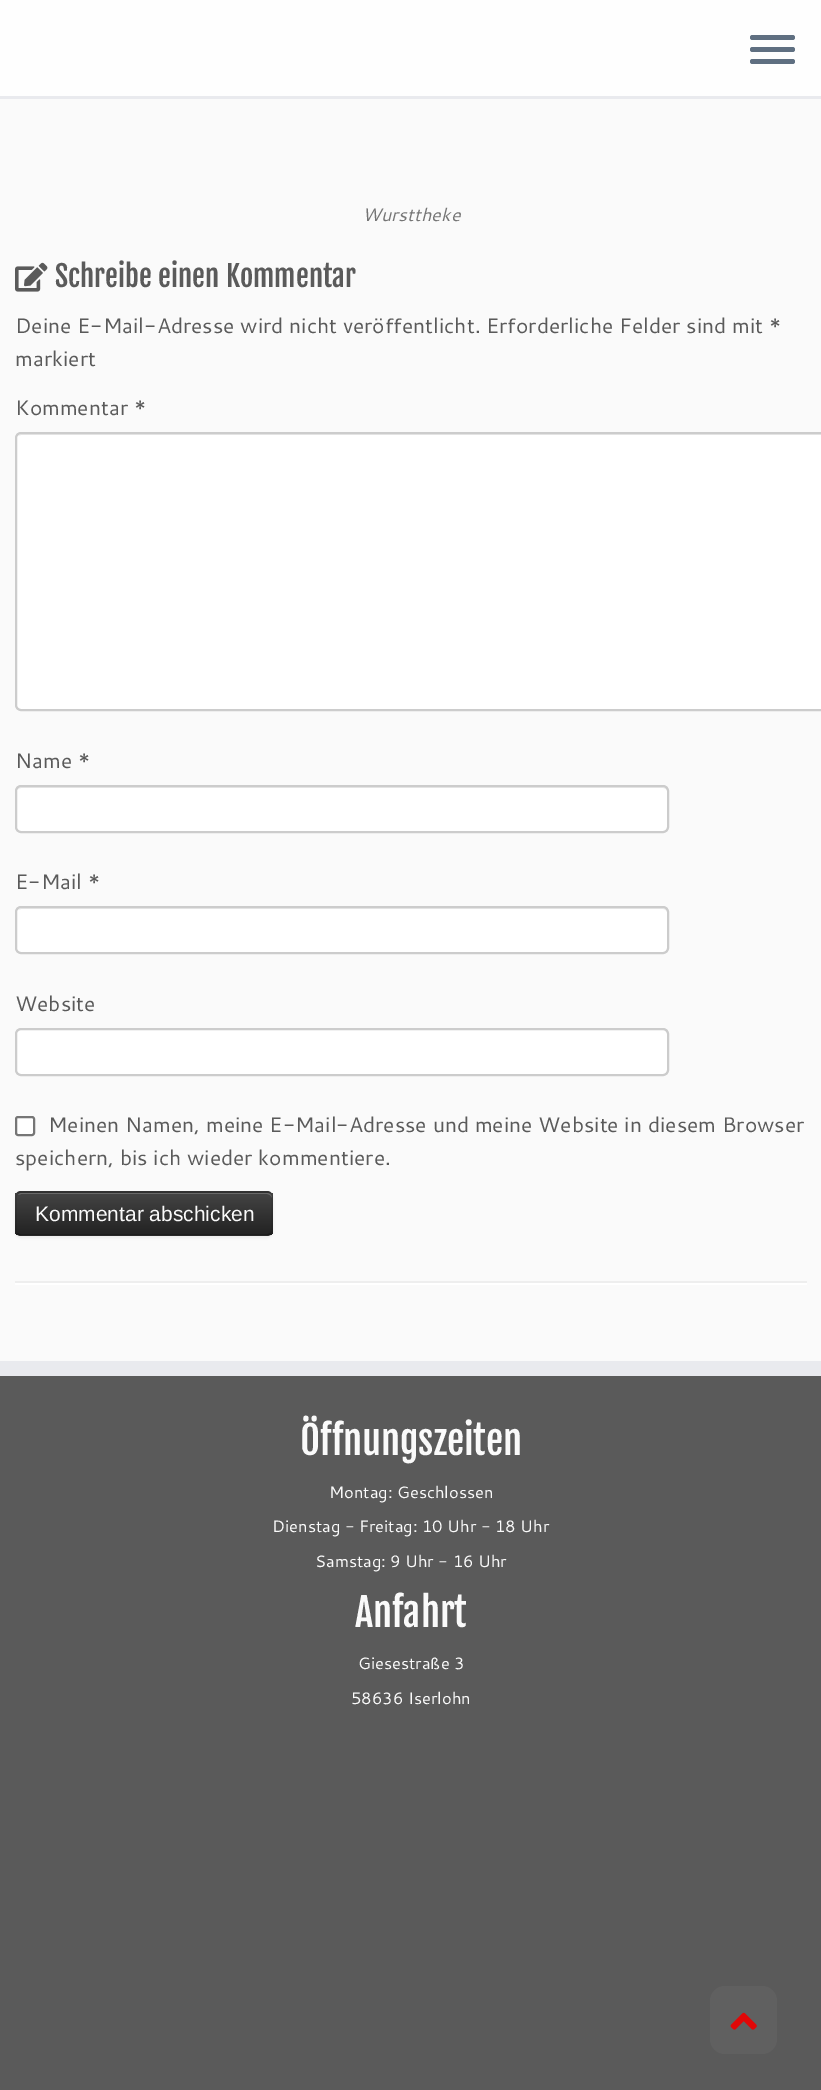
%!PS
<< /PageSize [821 2090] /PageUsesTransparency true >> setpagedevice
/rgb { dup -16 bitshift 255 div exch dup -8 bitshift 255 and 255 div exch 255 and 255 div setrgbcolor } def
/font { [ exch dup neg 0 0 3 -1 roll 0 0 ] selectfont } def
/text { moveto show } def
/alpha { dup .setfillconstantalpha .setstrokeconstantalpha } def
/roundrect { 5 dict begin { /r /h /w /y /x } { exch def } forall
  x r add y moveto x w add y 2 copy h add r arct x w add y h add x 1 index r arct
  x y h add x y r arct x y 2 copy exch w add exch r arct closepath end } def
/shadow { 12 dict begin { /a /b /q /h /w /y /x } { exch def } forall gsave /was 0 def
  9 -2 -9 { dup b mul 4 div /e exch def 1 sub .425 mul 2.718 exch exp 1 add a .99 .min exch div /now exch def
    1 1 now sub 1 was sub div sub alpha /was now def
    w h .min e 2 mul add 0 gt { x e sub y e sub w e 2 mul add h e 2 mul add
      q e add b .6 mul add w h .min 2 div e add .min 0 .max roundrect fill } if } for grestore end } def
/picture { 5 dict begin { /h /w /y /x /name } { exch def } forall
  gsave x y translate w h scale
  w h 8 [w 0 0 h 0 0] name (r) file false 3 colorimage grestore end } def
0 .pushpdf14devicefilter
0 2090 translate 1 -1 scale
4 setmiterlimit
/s1 { /Cantarell-Italic 18 font 16#757575 rgb } def
/s2 { /FjallaOne-Regular 28.75 font 16#5A5A5A rgb } def
/s3 { /Cantarell-Regular 21 font 16#5A5A5A rgb } def
/s4 { /LiberationSans-Regular 21 font 16#FAFAFA rgb } def
/s5 { /FjallaOne-Regular 38.5 font 16#FAFAFA rgb } def
/s6 { /Cantarell-Regular 16.5 font 16#FAFAFA rgb } def
16#FAFAFA rgb
0 0 821 2090 rectfill
16#FEFEFE rgb
0 0 821 96 rectfill
16#E9EAEE rgb
0 96 821 3 rectfill
16#5F6F81 rgb
750 35 45 5 2.5 roundrect fill
750 47 45 5 2.5 roundrect fill
750 59 45 5 2.5 roundrect fill
s1
(Wursttheke) 362 221 text
(pic1.raw) 15 262 33 30 picture
s2
(Schreibe einen Kommentar) 55 287 text
s3
(Deine E-Mail-Adresse wird nicht veröffentlicht. Erforderliche Felder sind mit *) 15 333 text
(markiert) 15 366 text
(Kommentar *) 15 415 text
16#FFFFFF rgb
15 432 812 279 6 roundrect fill
16#ECECEC rgb
21 435 moveto 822 435 lineto 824 435 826 437 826 440 curveto 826 706 lineto 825 709 lineto 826 708 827 706 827 705 curveto 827 439 lineto 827 436 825 434 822 434 curveto 22 434 lineto 20 434 19 435 18 436 curveto closepath fill
16#CCCCCC rgb
2 setlinewidth
16 433 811 277 5 roundrect stroke
s3
(Name *) 15 768 text
16#FFFFFF rgb
15 785 654 48 6 roundrect fill
16#ECECEC rgb
21 788 moveto 663 788 lineto 665 788 668 790 668 792 curveto 668 791 lineto 668 788 666 786 663 786 curveto 22 786 lineto 20 786 18 788 17 790 curveto 18 789 20 788 21 788 curveto closepath fill
16#CCCCCC rgb
16 786 652 46 5 roundrect stroke
s3
(E-Mail *) 15 889 text
16#FFFFFF rgb
15 906 654 48 6 roundrect fill
16#ECECEC rgb
21 909 moveto 663 909 lineto 665 909 668 911 668 914 curveto 668 913 lineto 668 910 666 908 663 908 curveto 22 908 lineto 20 908 19 909 18 910 curveto closepath fill
16#CCCCCC rgb
16 907 652 46 5 roundrect stroke
s3
(Website) 15 1011 text
16#FFFFFF rgb
15 1028 654 48 6 roundrect fill
16#ECECEC rgb
21 1030 moveto 663 1030 lineto 665 1030 668 1033 668 1035 curveto 668 1034 lineto 668 1031 666 1029 663 1029 curveto 22 1029 lineto 20 1029 18 1030 17 1032 curveto 18 1031 20 1030 21 1030 curveto closepath fill
16#CCCCCC rgb
16 1029 652 46 5 roundrect stroke
16#FFFFFF rgb
16 1117 18 18 2 roundrect gsave fill grestore
16#767676 rgb
stroke
s3
(Meinen Namen, meine E-Mail-Adresse und meine Website in diesem Browser) 48 1132 text
(speichern, bis ich wieder kommentiere.) 15 1165 text
16#000000 rgb
15 1193 258 45 6 1.5 0.05 shadow
16#363636 rgb
15 1191 258 45 6 roundrect fill
gsave
15 1191 258 45 6 roundrect clip newpath
gsave 15 1193 moveto 273 1193 lineto 273 1235 lineto 15 1235 lineto closepath clip newpath
<< /ShadingType 2 /ColorSpace /DeviceRGB /Coords [144 1193 144 1235] /Extend [true true] /Function << /FunctionType 2 /Domain [0 1] /C0 [0.267 0.267 0.267] /C1 [0.133 0.133 0.133] /N 1 >> >> shfill grestore
grestore
16#696969 rgb
21 1194 moveto 267 1194 lineto 269 1194 272 1196 272 1198 curveto 272 1195 270 1193 267 1193 curveto 22 1193 lineto 20 1193 19 1194 18 1195 curveto closepath fill
0.25 alpha
16#000000 rgb
1.5 setlinewidth
270.5 1233.5 moveto 267.5 1235 lineto 21 1235 lineto 19.5 1235 18.5 1234.5 17.5 1233.5 curveto stroke
0.1 alpha
17.5 1233.5 moveto 16.5 1232.5 16 1231.5 16 1230 curveto 16 1197 lineto 16 1195.5 16.5 1194.5 17.5 1193.5 curveto 18.5 1192.5 19.5 1192 21 1192 curveto 267 1192 lineto 268.5 1192 269.5 1192.5 270.5 1193.5 curveto 271.5 1194.5 272 1195.5 272 1197 curveto 272 1230 lineto 272 1231.5 271.5 1232.5 270.5 1233.5 curveto stroke
1 alpha
s4
(Kommentar abschicken) 35 1221 text
16#EEEEEE rgb
15 1281 792 2 rectfill
16#FFFFFF rgb
15 1283 792 2 rectfill
16#5A5A5A rgb
0 1376 821 714 rectfill
16#E9EAEE rgb
0 1361 821 15 rectfill
s5
(Öffnungszeiten) 300 1455 text
s6
(Montag: Geschlossen) 329 1498 text
(Dienstag - Freitag: 10 Uhr - 18 Uhr) 272 1532 text
(Samstag: 9 Uhr - 16 Uhr) 315 1567 text
s5
(Anfahrt) 355 1627 text
s6
(Giesestraße 3) 358 1669 text
(58636 Iserlohn) 351 1704 text
16#606060 rgb
710 1986 67 68 15 roundrect fill
(pic2.raw) 730 2012 27 18 picture
.poppdf14devicefilter showpage
